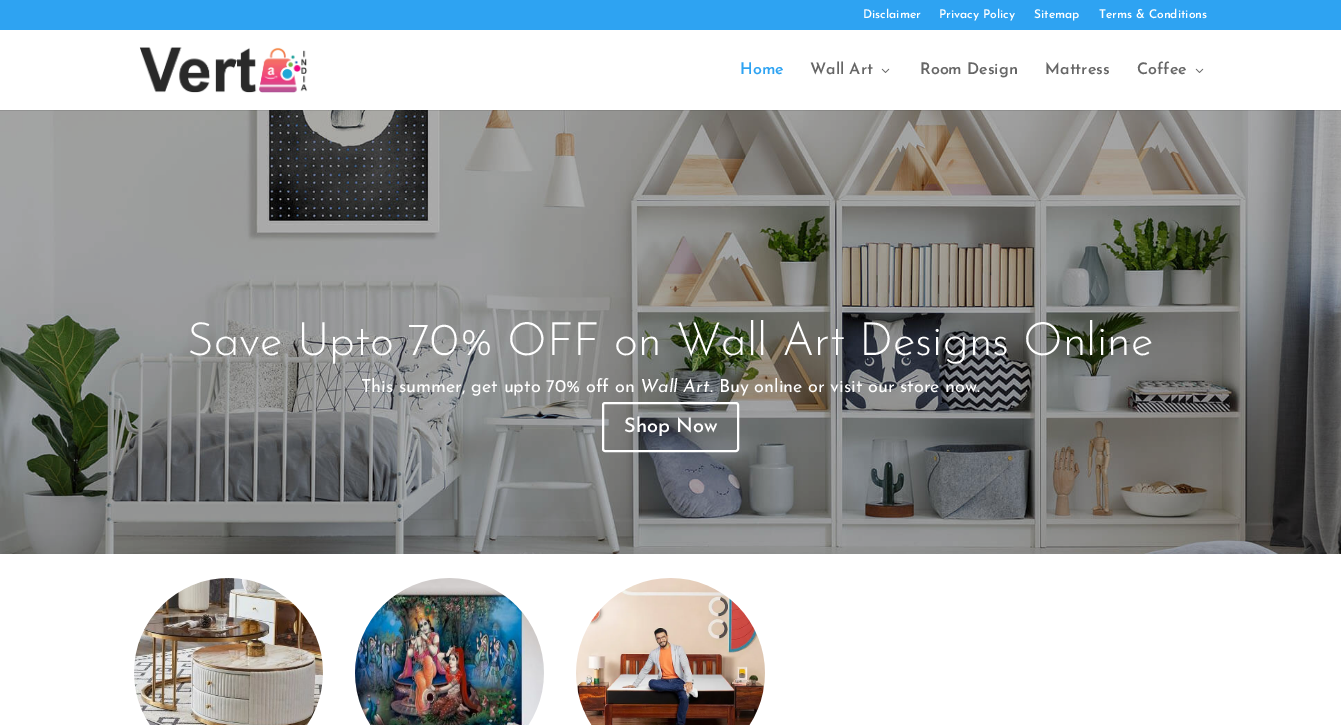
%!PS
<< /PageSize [1341 725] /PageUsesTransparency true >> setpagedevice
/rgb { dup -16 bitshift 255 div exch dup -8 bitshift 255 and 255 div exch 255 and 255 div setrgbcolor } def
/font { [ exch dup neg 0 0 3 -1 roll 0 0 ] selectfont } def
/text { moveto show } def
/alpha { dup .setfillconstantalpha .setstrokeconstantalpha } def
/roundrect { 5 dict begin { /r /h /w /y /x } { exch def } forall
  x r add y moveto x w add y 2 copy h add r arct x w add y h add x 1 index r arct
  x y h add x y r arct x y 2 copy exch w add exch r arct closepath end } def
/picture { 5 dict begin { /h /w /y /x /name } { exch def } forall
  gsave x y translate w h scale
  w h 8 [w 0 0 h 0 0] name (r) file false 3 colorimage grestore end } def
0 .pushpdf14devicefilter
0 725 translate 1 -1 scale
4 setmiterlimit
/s1 { /JosefinSans-SemiBold 12 font 16#FFFFFF rgb } def
/s2 { /JosefinSans-SemiBold 16 font 16#2EA3F2 rgb } def
/s3 { /JosefinSans-SemiBold 16 font 16#666666 rgb } def
/s4 { /JosefinSans-Light 46 font 16#FFFFFF rgb } def
/s5 { /JosefinSans-Regular 18 font 16#FFFFFF rgb } def
/s6 { /JosefinSans-Italic 18 font 16#FFFFFF rgb } def
/s7 { /JosefinSans-Medium 20 font 16#FFFFFF rgb } def
16#FFFFFF rgb
0 0 1341 725 rectfill
16#2EA3F2 rgb
0 0 1341 30 rectfill
s1
(Disclaimer) 863 18 text
(Privacy Policy) 939 18 text
(Sitemap) 1034 18 text
(Terms & Conditions) 1099 18 text
(pic3.raw) 0 110 1341 444 picture
0.1 alpha
16#000000 rgb
0 110 1341 1 rectfill
1 alpha
(pic1.raw) 139 47 169 46 picture
s2
(Home) 740 74 text
s3
(Wall Art) 810 74 text
(pic2.raw) 881 68 9 5 picture
(Room Design) 920 74 text
(Mattress) 1045 74 text
(Coffee) 1137 74 text
(pic2.raw) 1195 68 9 5 picture
s4
(Save Upto 70% OFF on Wall Art Designs Online) 187 355 text
s5
(This summer, get upto 70% off on) 361 392 text
s6
(Wall Art) 640 392 text
s5
(. Buy online or visit our store now.) 710 392 text
2 setlinewidth
603 403 135 48 2 roundrect stroke
s7
(Shop Now) 624 432 text
(pic4.raw) 134 578 189 147 picture
(pic5.raw) 355 578 189 147 picture
(pic6.raw) 576 578 189 147 picture
.poppdf14devicefilter showpage
